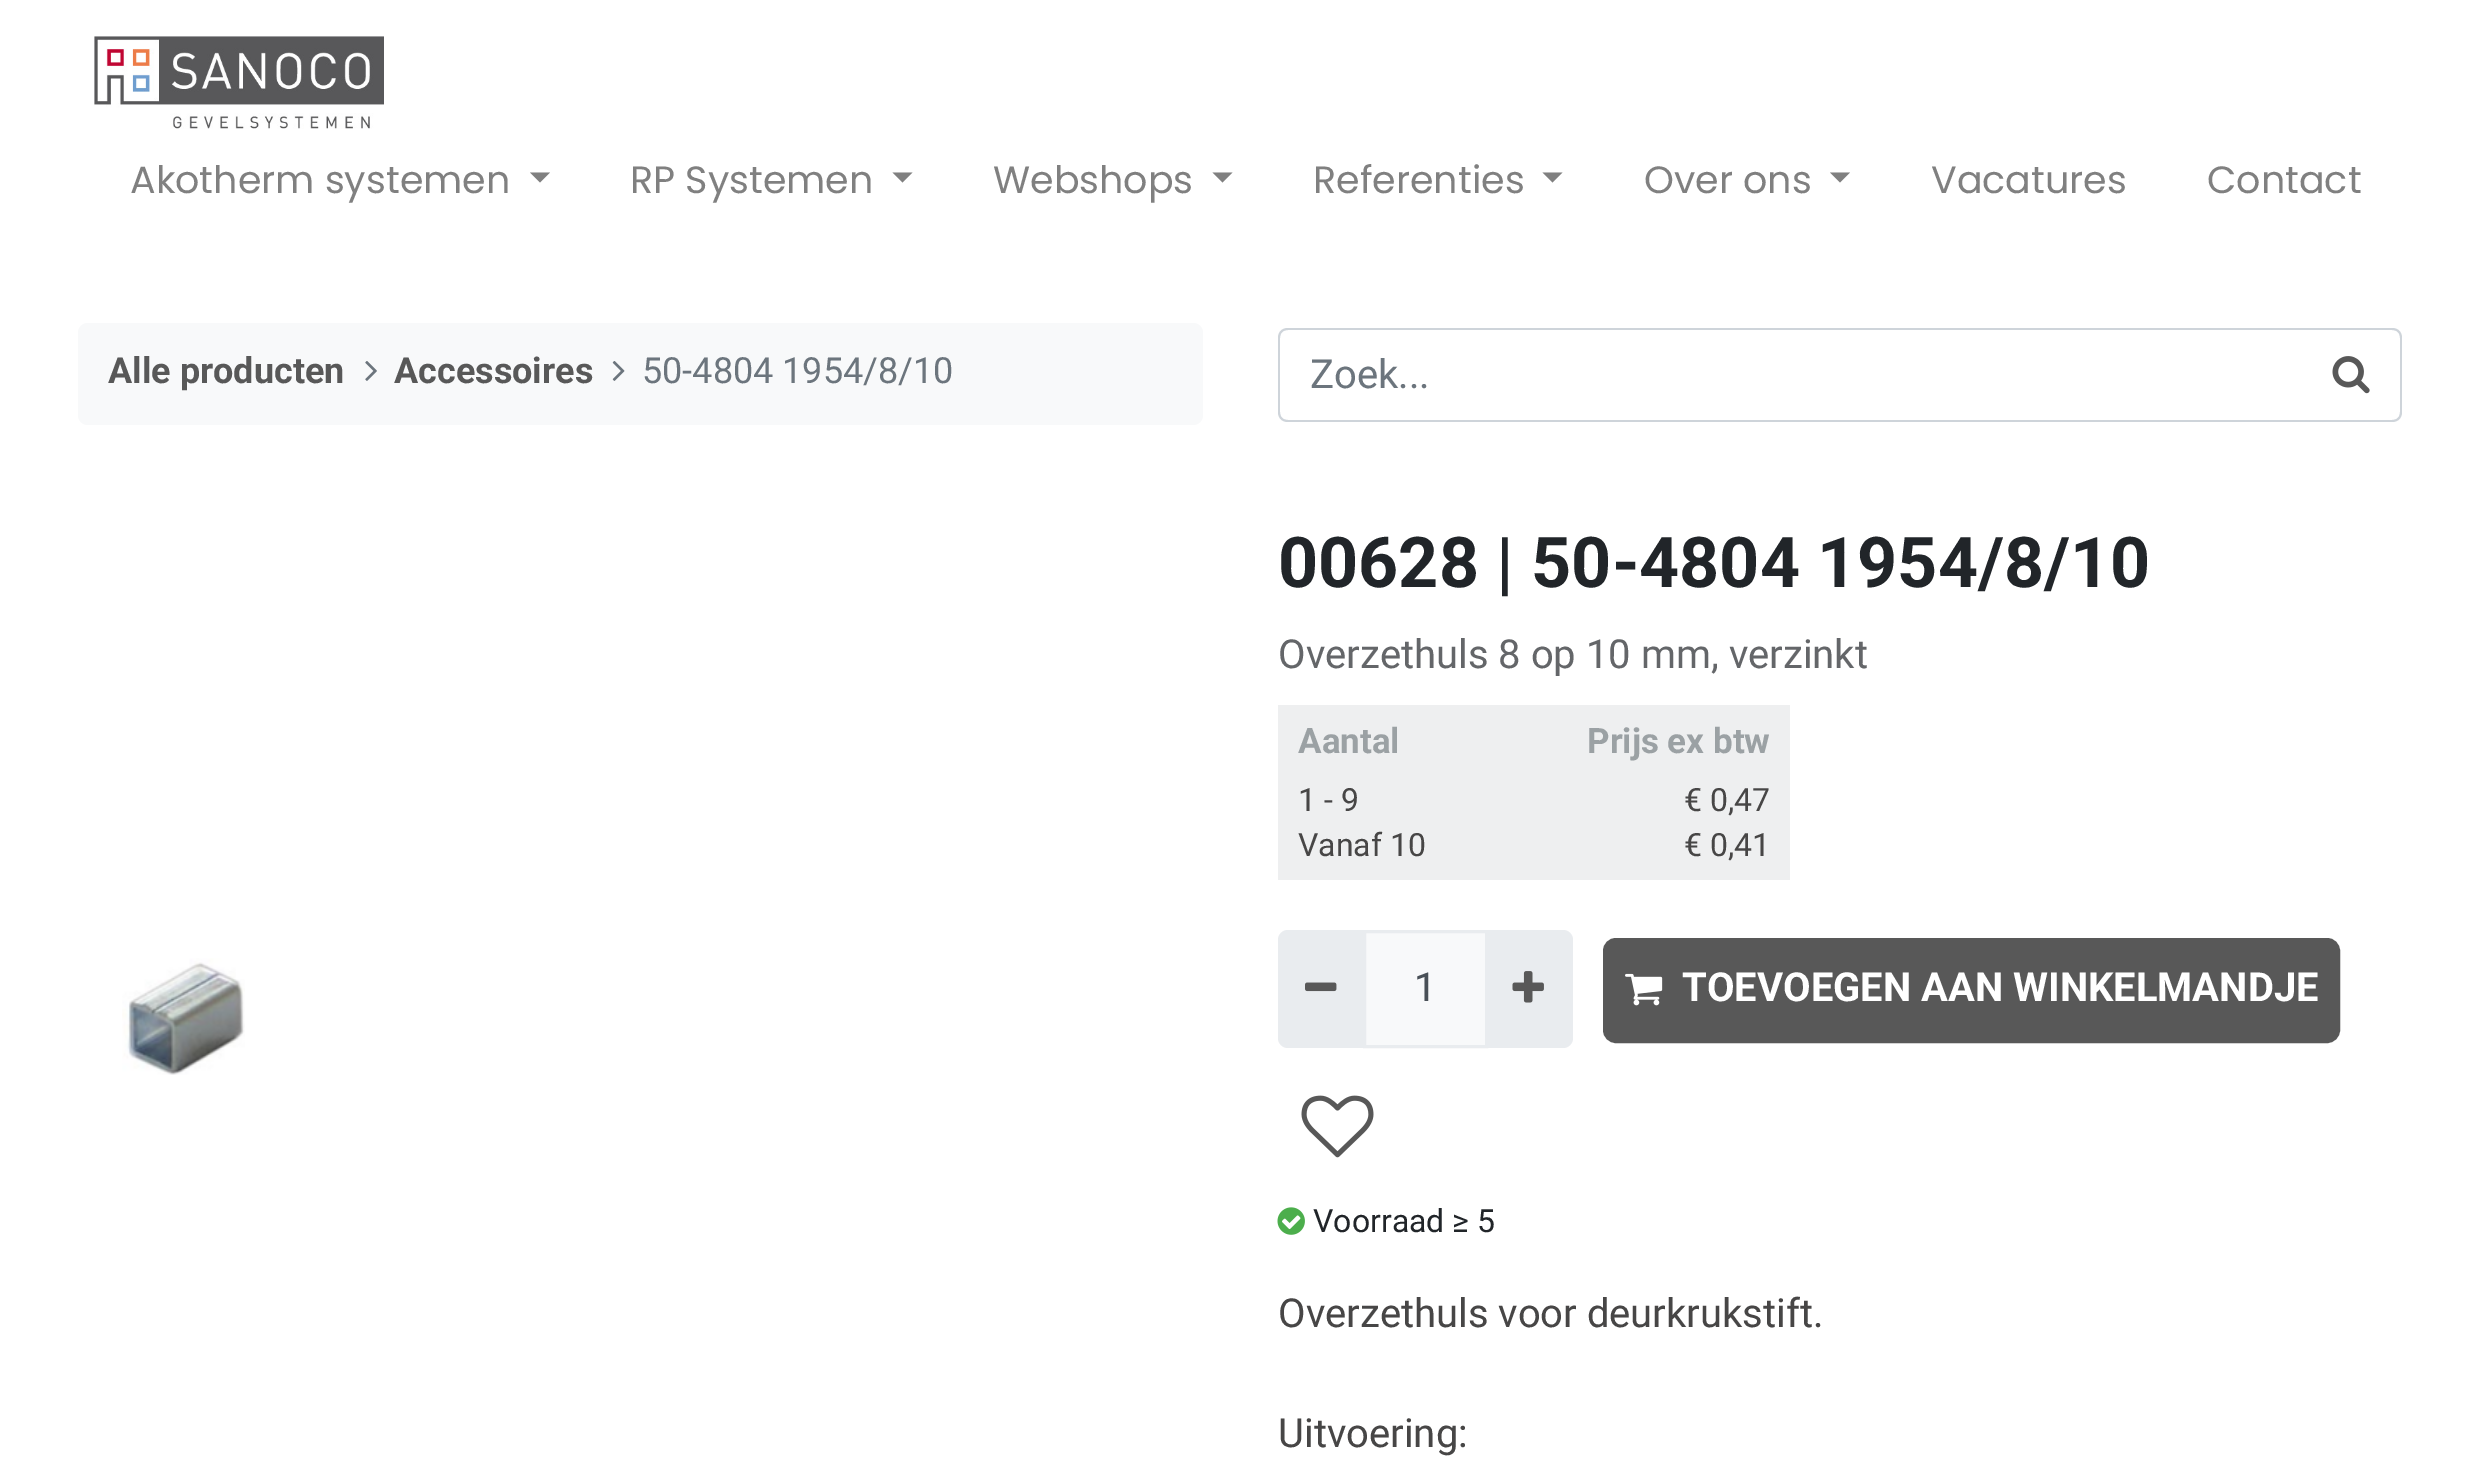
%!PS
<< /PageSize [2480 1475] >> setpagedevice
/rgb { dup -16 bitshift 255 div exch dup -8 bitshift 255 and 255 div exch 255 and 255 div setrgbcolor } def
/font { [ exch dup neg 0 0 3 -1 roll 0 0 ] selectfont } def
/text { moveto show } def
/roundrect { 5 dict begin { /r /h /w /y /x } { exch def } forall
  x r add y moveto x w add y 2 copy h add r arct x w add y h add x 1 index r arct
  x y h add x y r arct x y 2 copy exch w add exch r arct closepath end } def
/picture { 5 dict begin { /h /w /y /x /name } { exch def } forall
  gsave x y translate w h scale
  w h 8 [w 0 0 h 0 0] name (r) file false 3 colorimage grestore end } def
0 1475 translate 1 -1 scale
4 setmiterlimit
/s1 { /Poppins-Regular 38 font 16#808080 rgb } def
/s2 { /Roboto-Bold 36 font 16#585858 rgb } def
/s3 { /Roboto-Regular 36 font 16#6C757D rgb } def
/s4 { /Roboto-Regular 40 font 16#6C757D rgb } def
/s5 { /Roboto-Bold 70 font 16#212529 rgb } def
/s6 { /Roboto-Regular 40 font 16#646669 rgb } def
/s7 { /Roboto-Bold 35 font 16#9BA1A4 rgb } def
/s8 { /Roboto-Regular 32 font 16#474646 rgb } def
/s9 { /Roboto-Regular 40 font 16#495057 rgb } def
/s10 { /Roboto-Bold 40 font 16#FFFFFF rgb } def
/s11 { /Roboto-Regular 32 font 16#212529 rgb } def
/s12 { /Roboto-Regular 40 font 16#474646 rgb } def
16#FFFFFF rgb
0 0 2480 1475 rectfill
(pic1.raw) 94 36 290 93 picture
s1
(Akotherm systemen) 130 193 text
530 172.5 moveto 550 172.5 lineto 540 182.5 lineto closepath fill
(RP Systemen) 630 193 text
892.5 172.5 moveto 912.5 172.5 lineto 902.5 182.5 lineto closepath fill
(Webshops) 993 193 text
1212.5 172.5 moveto 1232.5 172.5 lineto 1222.5 182.5 lineto closepath fill
(Referenties) 1313 193 text
1542.5 172.5 moveto 1562.5 172.5 lineto 1552.5 182.5 lineto closepath fill
(Over ons) 1644 193 text
1830 172.5 moveto 1850 172.5 lineto 1840 182.5 lineto closepath fill
(Vacatures) 1931 193 text
(Contact) 2207 193 text
16#F8F9FA rgb
78 323 1125 102 10 roundrect fill
s2
(Alle producten) 108 383 text
(pic2.raw) 365 361 12 20 picture
(Accessoires) 394 383 text
(pic3.raw) 612 361 13 20 picture
s3
(50-4804 1954/8/10) 642 383 text
16#CED4DA rgb
1288 328 moveto 2305 328 lineto 2305 422 lineto 1288 422 lineto 1282 422 1278 418 1278 412 curveto 1278 338 lineto 1278 332 1282 328 1288 328 curveto closepath 1288 330 moveto 2305 330 lineto 2305 420 lineto 1288 420 lineto 1283 420 1280 417 1280 412 curveto 1280 338 lineto 1280 333 1283 330 1288 330 curveto closepath eofill
s4
(Zoek...) 1310 388 text
16#CED4DA rgb
2302 328 moveto 2392 328 lineto 2398 328 2402 332 2402 338 curveto 2402 412 lineto 2402 418 2398 422 2392 422 curveto 2302 422 lineto closepath 2302 330 moveto 2392 330 lineto 2397 330 2400 333 2400 338 curveto 2400 412 lineto 2400 417 2397 420 2392 420 curveto 2302 420 lineto closepath eofill
(pic4.raw) 2332 356 38 38 picture
(pic5.raw) 122 958 123 117 picture
s5
(00628 | 50-4804 1954/8/10) 1278 587 text
s6
(Overzethuls 8 op 10 mm, verzinkt) 1278 668 text
16#EEEFF0 rgb
1278 705 512 175 rectfill
s7
(Aantal) 1298 753 text
(Prijs ex btw) 1587 753 text
s8
(1 - 9) 1298 811 text
(€ 0,47) 1684 811 text
(Vanaf 10) 1298 856 text
(€ 0,41) 1684 856 text
16#F8F9FA rgb
1364.5 931.5 moveto 1486.5 931.5 lineto 1486.5 1046.5 lineto 1364.5 1046.5 lineto closepath gsave fill grestore
16#E9ECEF rgb
3 setlinewidth
stroke
1288 930 moveto 1365 930 lineto 1365 1048 lineto 1288 1048 lineto 1282.5 1048 1278 1043.5 1278 1038 curveto 1278 940 lineto 1278 934.5 1282.5 930 1288 930 curveto closepath fill
(pic6.raw) 1305 982 32 10 picture
s9
(1) 1414 1001 text
16#E9ECEF rgb
1485 930 moveto 1563 930 lineto 1568.5 930 1573 934.5 1573 940 curveto 1573 1038 lineto 1573 1043.5 1568.5 1048 1563 1048 curveto 1485 1048 lineto closepath fill
(pic7.raw) 1512 971 32 32 picture
16#585858 rgb
1604.5 939.5 734 102 11.5 roundrect gsave fill grestore
stroke
(pic8.raw) 1625 973 38 33 picture
s10
(TOEVOEGEN AAN WINKELMANDJE) 1682 1001 text
(pic9.raw) 1301 1095 73 63 picture
(pic10.raw) 1277 1207 28 28 picture
s11
(Voorraad ≥ 5) 1313 1232 text
s12
(Overzethuls voor deurkrukstift.) 1278 1327 text
(Uitvoering:) 1278 1447 text
showpage
